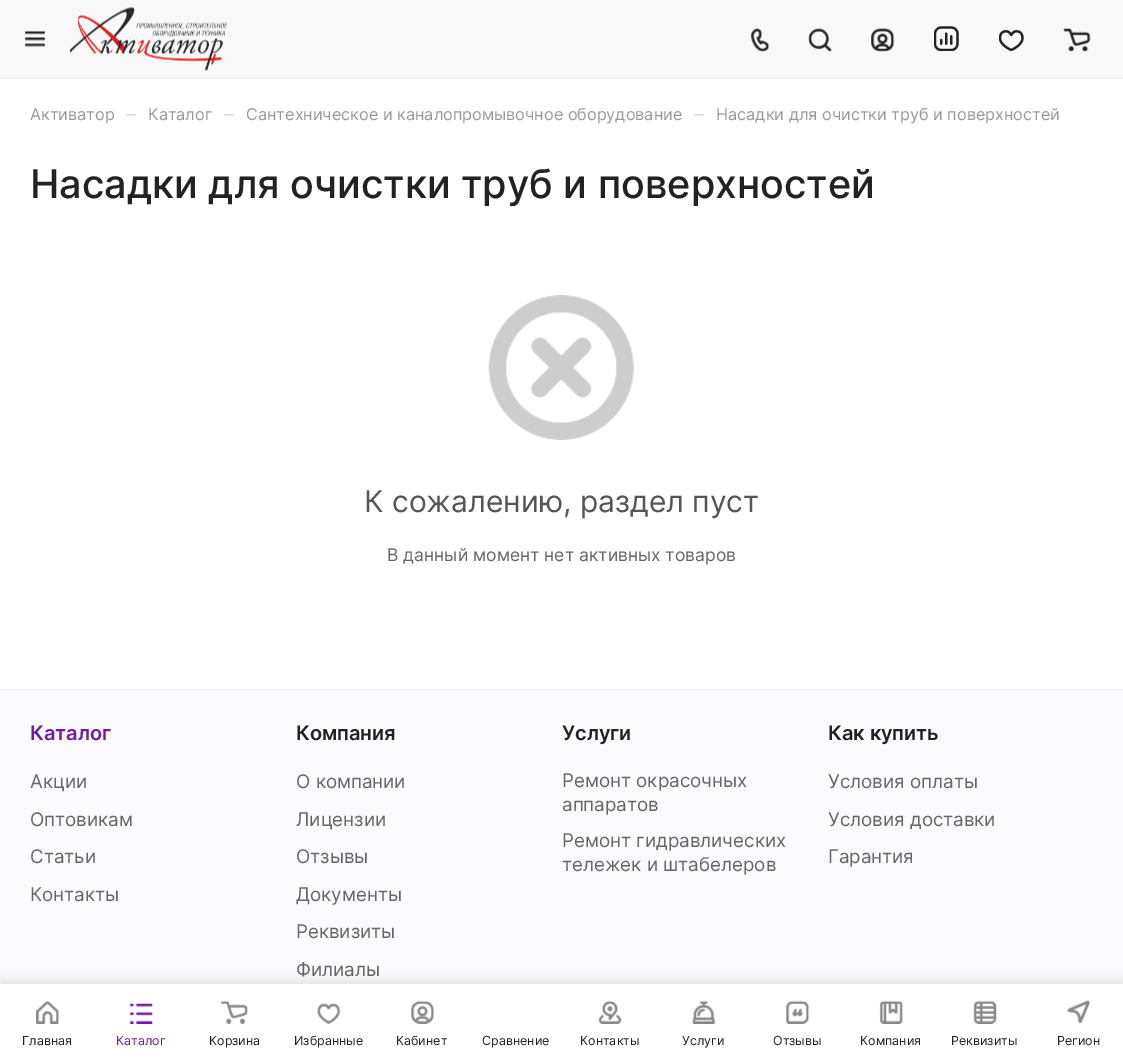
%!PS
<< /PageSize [1123 1060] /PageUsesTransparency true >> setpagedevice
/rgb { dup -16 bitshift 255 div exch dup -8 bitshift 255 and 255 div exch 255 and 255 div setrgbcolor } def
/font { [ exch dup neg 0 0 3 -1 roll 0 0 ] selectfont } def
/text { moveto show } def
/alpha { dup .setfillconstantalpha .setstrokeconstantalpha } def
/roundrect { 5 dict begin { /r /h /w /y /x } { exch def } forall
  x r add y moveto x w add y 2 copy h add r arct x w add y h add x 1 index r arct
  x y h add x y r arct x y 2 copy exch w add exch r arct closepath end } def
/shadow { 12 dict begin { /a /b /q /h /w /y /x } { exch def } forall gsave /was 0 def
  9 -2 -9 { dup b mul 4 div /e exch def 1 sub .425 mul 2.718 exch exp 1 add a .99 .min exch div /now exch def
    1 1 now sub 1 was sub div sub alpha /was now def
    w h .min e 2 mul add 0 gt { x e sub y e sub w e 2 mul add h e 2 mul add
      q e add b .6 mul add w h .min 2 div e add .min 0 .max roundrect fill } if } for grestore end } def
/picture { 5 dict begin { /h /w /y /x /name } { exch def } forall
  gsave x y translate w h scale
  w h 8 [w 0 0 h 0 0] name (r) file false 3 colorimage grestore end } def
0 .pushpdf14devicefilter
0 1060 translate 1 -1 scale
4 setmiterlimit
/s1 { /Inter-Regular 16.25 font 16#999999 rgb } def
/s2 { /Inter-Regular 20 font 16#DDDDDD rgb } def
/s3 { /Inter-Medium 39.6 font 16#222222 rgb } def
/s4 { /Inter-Regular 30 font 16#555555 rgb } def
/s5 { /Inter-Regular 17.5 font 16#666666 rgb } def
/s6 { /Inter-SemiBold 20 font 16#711AA7 rgb } def
/s7 { /Inter-Regular 18.75 font 16#666666 rgb } def
/s8 { /Inter-SemiBold 20 font 16#222222 rgb } def
/s9 { /Inter-Regular 12.5 font 16#222222 rgb } def
/s10 { /Inter-Regular 12.5 font 16#711AA7 rgb } def
16#FFFFFF rgb
0 0 1123 1060 rectfill
16#EDEDED rgb
0 78 moveto 0 79 lineto 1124 79 lineto 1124 1 lineto 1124 78 lineto closepath fill
16#F8F8F8 rgb
0 0 1123 78 rectfill
(pic1.raw) 25 30 20 17 picture
(pic2.raw) 70 7 158 64 picture
(pic3.raw) 751 28 19 24 picture
(pic4.raw) 808 28 24 24 picture
(pic5.raw) 871 28 24 24 picture
(pic6.raw) 934 26 25 25 picture
(pic7.raw) 999 30 25 21 picture
(pic8.raw) 1063 28 28 24 picture
s1
(Активатор) 30 120 text
s2
(–) 126 121 text
s1
(Каталог) 148 120 text
s2
(–) 224 121 text
s1
(Сантехническое и каналопромывочное оборудование) 246 120 text
s2
(–) 694 121 text
s1
(Насадки для очистки труб и поверхностей) 716 120 text
s3
(Насадки для очистки труб и поверхностей) 30 198 text
(pic9.raw) 488 295 146 145 picture
s4
(К сожалению, раздел пуст) 364 512 text
s5
(В данный момент нет активных товаров) 387 561 text
16#EDEDED rgb
0 689 1123 1 rectfill
16#FBFAFC rgb
0 690 1123 294 rectfill
s6
(Каталог) 30 740 text
s7
(Акции) 30 788 text
(Оптовикам) 30 826 text
(Статьи) 30 863 text
(Контакты) 30 901 text
s8
(Компания) 296 740 text
s7
(О компании) 296 788 text
(Лицензии) 296 826 text
(Отзывы) 296 863 text
(Документы) 296 901 text
(Реквизиты) 296 938 text
(Филиалы) 296 976 text
s8
(Услуги) 562 740 text
s7
(Ремонт окрасочных) 562 787 text
(аппаратов) 562 811 text
(Ремонт гидравлических) 562 847 text
(тележек и штабелеров) 562 871 text
s8
(Как купить) 828 740 text
s7
(Условия оплаты) 828 788 text
(Условия доставки) 828 826 text
(Гарантия) 828 863 text
16#000000 rgb
0 980 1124 76 0 6 0.1 shadow
16#FFFFFF rgb
0 984 1123 76 rectfill
(pic10.raw) 36 1000 24 24 picture
s9
(Главная) 22 1045 text
(pic11.raw) 129 1003 24 21 picture
s10
(Каталог) 116 1045 text
(pic12.raw) 221 1000 27 24 picture
s9
(Корзина) 209 1045 text
(pic13.raw) 317 1003 24 21 picture
(Избранные) 294 1045 text
(pic14.raw) 411 1000 24 24 picture
(Кабинет) 396 1045 text
(Сравнение) 482 1045 text
(pic15.raw) 598 1000 24 24 picture
(Контакты) 580 1045 text
(pic16.raw) 692 1000 24 24 picture
(Услуги) 682 1045 text
(pic17.raw) 786 1000 24 24 picture
(Отзывы) 773 1045 text
(pic18.raw) 879 1000 24 24 picture
(Компания) 860 1045 text
(pic19.raw) 973 1000 24 24 picture
(Реквизиты) 951 1045 text
(pic20.raw) 1067 1000 23 24 picture
(Регион) 1057 1045 text
.poppdf14devicefilter showpage
